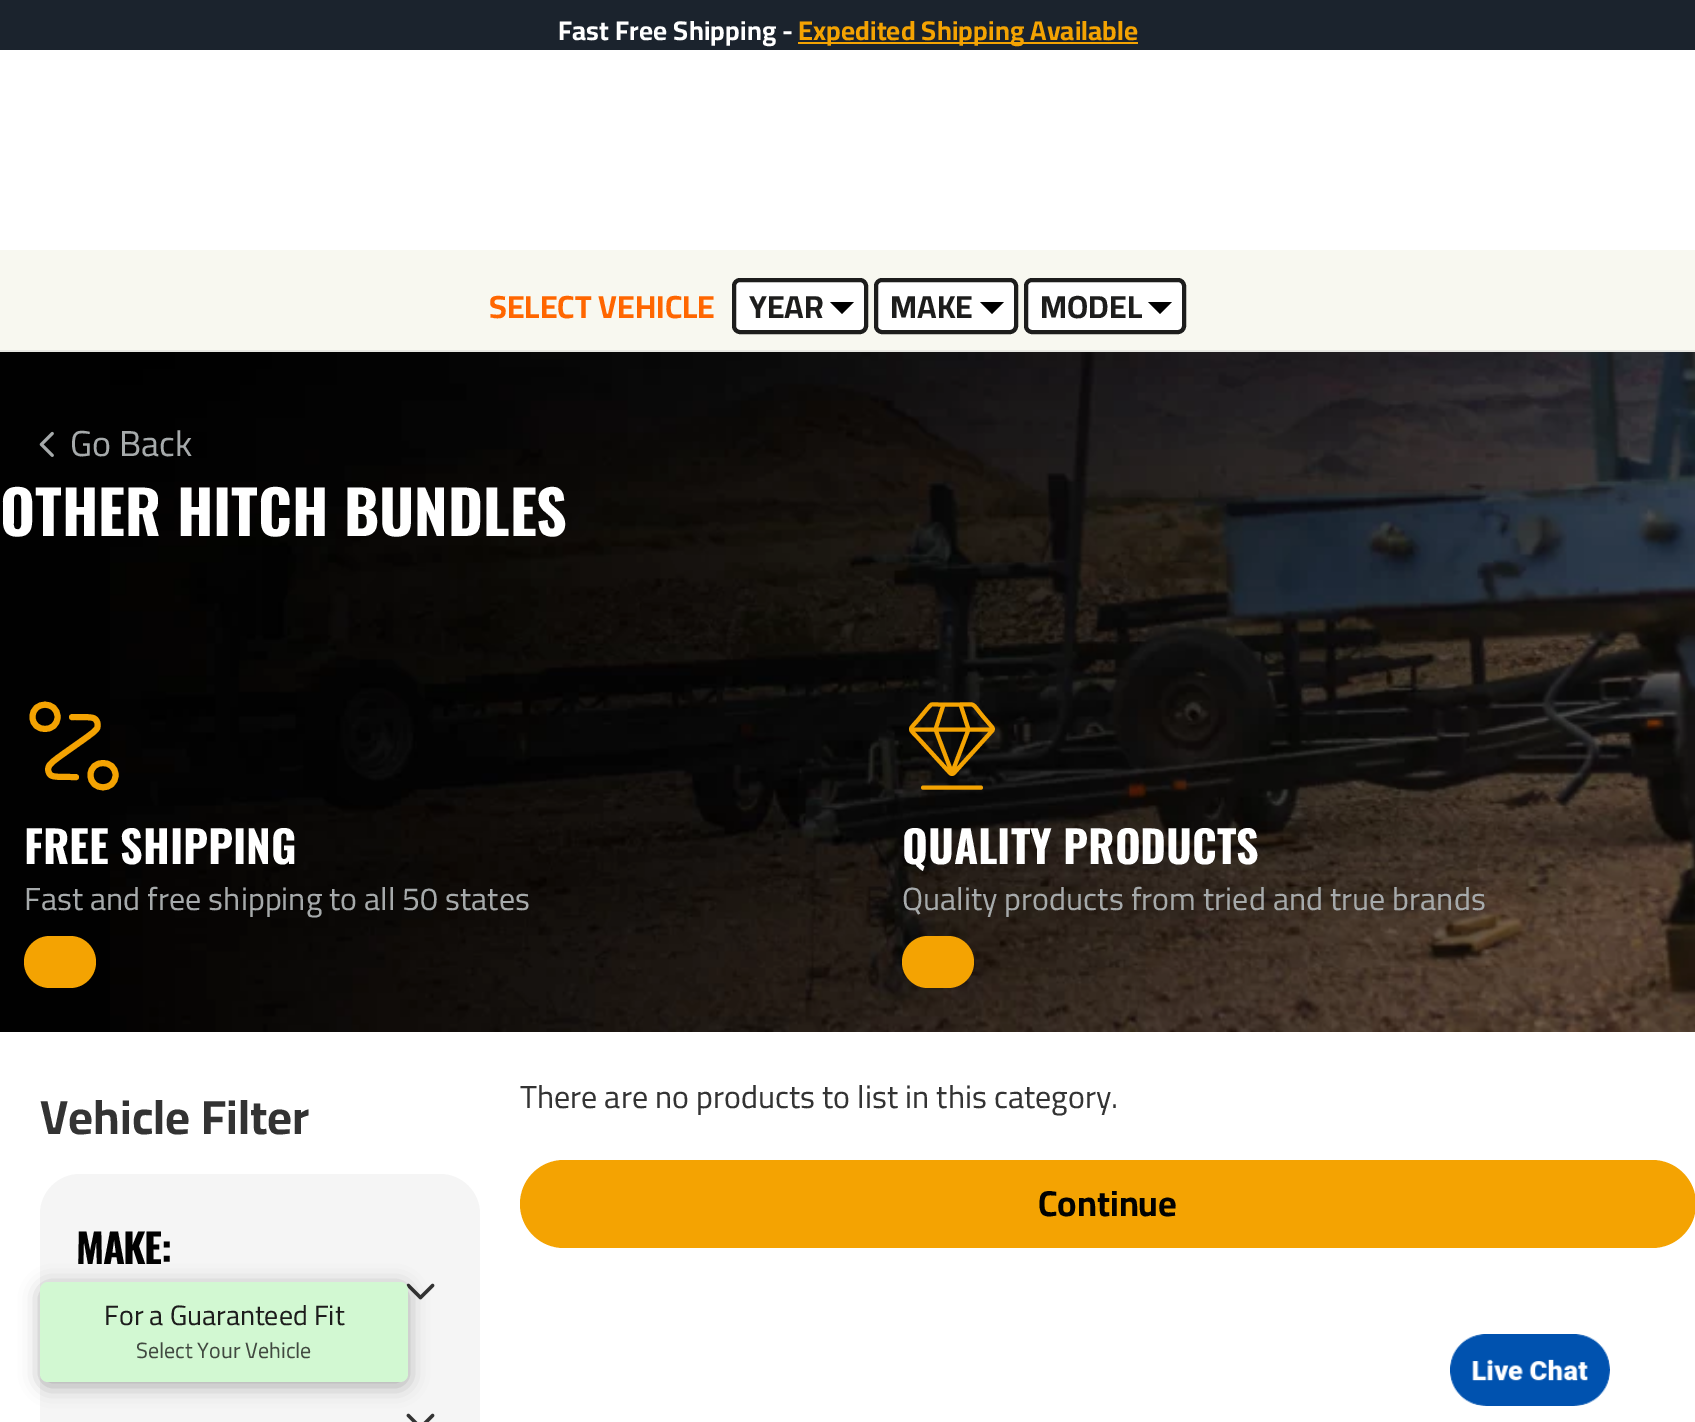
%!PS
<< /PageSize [1695 1422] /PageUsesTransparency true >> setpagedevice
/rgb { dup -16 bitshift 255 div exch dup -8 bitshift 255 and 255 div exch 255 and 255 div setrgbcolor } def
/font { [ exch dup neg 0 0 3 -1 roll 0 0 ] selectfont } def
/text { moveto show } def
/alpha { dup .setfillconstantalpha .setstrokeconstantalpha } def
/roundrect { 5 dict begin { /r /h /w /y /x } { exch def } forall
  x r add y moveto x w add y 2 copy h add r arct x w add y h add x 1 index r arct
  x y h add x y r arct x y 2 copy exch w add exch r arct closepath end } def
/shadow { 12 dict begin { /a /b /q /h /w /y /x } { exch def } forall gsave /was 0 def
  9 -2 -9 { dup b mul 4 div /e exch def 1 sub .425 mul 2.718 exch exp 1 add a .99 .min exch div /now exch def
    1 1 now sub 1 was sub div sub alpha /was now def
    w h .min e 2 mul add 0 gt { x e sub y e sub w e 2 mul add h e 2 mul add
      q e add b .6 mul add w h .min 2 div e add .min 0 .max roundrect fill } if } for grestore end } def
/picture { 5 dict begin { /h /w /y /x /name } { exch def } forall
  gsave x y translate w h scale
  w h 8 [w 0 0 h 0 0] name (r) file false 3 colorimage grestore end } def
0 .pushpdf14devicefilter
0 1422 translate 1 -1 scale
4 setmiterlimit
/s1 { /Cairo-Bold 32 font 16#FF6600 rgb } def
/s2 { /Cairo-Bold 32 font 16#1D1D1C rgb } def
/s3 { /Cairo-Regular 28 font 16#1D1D1C rgb } def
/s4 { /Cairo-Regular 22 font 16#414940 rgb } def
/s5 { /Cairo-Regular 36 font 16#A6AAAB rgb } def
/s6 { /Oswald-Bold 60 font 16#FFFFFF rgb } def
/s7 { /Oswald-Bold 44 font 16#FFFFFF rgb } def
/s8 { /Cairo-Regular 32 font 16#A6AAAB rgb } def
/s9 { /Cairo-Bold 48 font 16#333333 rgb } def
/s10 { /Cairo-Regular 32 font 16#333333 rgb } def
/s11 { /Cairo-Bold 36 font 16#010101 rgb } def
16#FFFFFF rgb
0 0 1695 1422 rectfill
16#1B232D rgb
0 0 1695 50 rectfill
/Cairo-Bold 27 font
16#FFFFFF rgb
558 40 moveto 0.1 0 (Fast Free Shipping -) ashow
16#F4A302 rgb
798 42 340 2 rectfill
798 40 moveto 0.1 0 (Expedited Shipping Available) ashow
16#F8F8F0 rgb
0 250 1695 100 rectfill
16#E7E7E2 rgb
0 350 1695 2 rectfill
s1
(SELECT VEHICLE) 489 318 text
16#FFFFFF rgb
734 280 132 52 6 roundrect gsave fill grestore
16#1D1D1C rgb
4 setlinewidth
stroke
(YEAR) 749 318 text
16#000000 rgb
830 302 moveto 854 302 lineto 842 314 lineto closepath fill
16#FFFFFF rgb
876 280 140 52 6 roundrect gsave fill grestore
16#1D1D1C rgb
stroke
(MAKE) 890 318 text
16#000000 rgb
980 302 moveto 1004 302 lineto 992 314 lineto closepath fill
16#FFFFFF rgb
1026 280 158 52 6 roundrect gsave fill grestore
16#1D1D1C rgb
stroke
(MODEL) 1040 318 text
16#000000 rgb
1148 302 moveto 1172 302 lineto 1160 314 lineto closepath fill
16#F5F5F5 rgb
40 1174 440 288 40 roundrect fill
(pic3.raw) 406 1283 29 17 picture
(pic4.raw) 406 1413 29 9 picture
16#000000 rgb
40 1286 368 100 8 10 0.3 shadow
16#D2F8D2 rgb
40 1282 368 100 8 roundrect fill
s3
(For a Guaranteed Fit) 104 1325 text
s4
(Select Your Vehicle) 136 1358 text
16#010101 rgb
0 352 110 680 rectfill
(pic1.raw) 110 352 1585 680 picture
(pic2.raw) 39 431 15 26 picture
s5
(Go Back) 70 456 text
s6
(OTHER HITCH BUNDLES) 0 536 text
16#F4A302 rgb
6 setlinewidth
1 setlinecap
1 setlinejoin
72 717 moveto 73.5 717 lineto 86.5 717 93 717 95 719 curveto 97.5 721 98 724 97.5 727 curveto 97 730 92 733.5 81.5 741 curveto 64.5 753 lineto 54 760.5 49 764 48.5 767.5 curveto 47.5 770 48.5 773 50.5 775 curveto 53 777 59.5 777 72 777 curveto 76 777 lineto 57.5 717 moveto 57.5 733 32.5 733 32.5 717 curveto 32.5 700.5 57.5 700.5 57.5 717 curveto closepath 115.5 775 moveto 115.5 791.5 90.5 791.5 90.5 775 curveto 90.5 759 115.5 759 115.5 775 curveto closepath stroke
s7
(FREE SHIPPING) 24 864 text
s8
(Fast and free shipping to all 50 states) 24 910 text
16#F4A302 rgb
24 936 72 52 26 roundrect fill
4 setlinewidth
923 787.5 moveto 981 787.5 lineto 912.5 729.5 moveto 991.5 729.5 lineto 943.5 704.5 moveto 935.5 729.5 lineto 952 773 lineto 968.5 729.5 lineto 960.5 704.5 lineto 954.5 772.5 moveto 991.5 731.5 lineto 993 730 993.5 729 992 727 curveto 983 716.5 lineto 970.5 701.5 977 704.5 958.5 704.5 curveto 939 704.5 lineto 930 704.5 932.5 703 927 709 curveto 918 720 lineto 908.5 731 908.5 727.5 918.5 738.5 curveto 949.5 772.5 lineto 951.5 774.5 952.5 774.5 954.5 772.5 curveto closepath stroke
s7
(QUALITY PRODUCTS) 902 864 text
s8
(Quality products from tried and true brands) 902 910 text
16#F4A302 rgb
902 936 72 52 26 roundrect fill
s9
(Vehicle Filter) 40 1134 text
/Oswald-Bold 40 font
16#010101 rgb
76 1264 moveto -1.5 0 (MAKE:) ashow
s10
(There are no products to list in this category.) 520 1108 text
16#F4A302 rgb
520 1160 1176 88 44 roundrect fill
s11
(Continue) 1038 1216 text
(pic5.raw) 1450 1334 160 72 picture
.poppdf14devicefilter showpage
